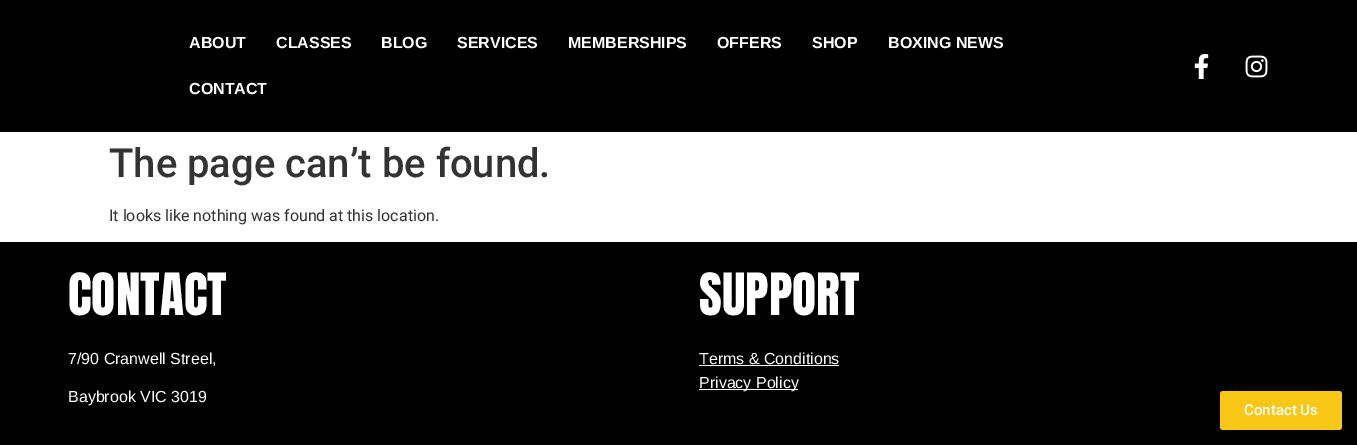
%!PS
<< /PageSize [1357 445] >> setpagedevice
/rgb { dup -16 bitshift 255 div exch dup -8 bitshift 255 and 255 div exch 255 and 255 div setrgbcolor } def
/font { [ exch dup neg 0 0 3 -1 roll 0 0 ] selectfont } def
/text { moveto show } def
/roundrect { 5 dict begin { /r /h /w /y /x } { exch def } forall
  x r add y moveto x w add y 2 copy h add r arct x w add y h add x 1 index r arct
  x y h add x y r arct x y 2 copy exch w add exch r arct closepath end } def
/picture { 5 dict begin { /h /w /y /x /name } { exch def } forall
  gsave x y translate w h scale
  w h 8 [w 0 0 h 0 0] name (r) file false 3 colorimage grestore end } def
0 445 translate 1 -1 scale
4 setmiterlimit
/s1 { /LiberationSans-Bold 16 font 16#FFFFFF rgb } def
/s2 { /Roboto-Medium 15 font 16#FFFFFF rgb } def
/s3 { /Roboto-Medium 40 font 16#333333 rgb } def
/s4 { /Roboto-Regular 16 font 16#333333 rgb } def
/s5 { /Anton-Regular 49.5 font 16#FFFFFF rgb } def
/s6 { /LiberationSans-Regular 16 font 16#FFFFFF rgb } def
16#FFFFFF rgb
0 0 1357 445 rectfill
16#000000 rgb
0 0 1357 132 rectfill
s1
(ABOUT) 189 48 text
(CLASSES) 276 48 text
(BLOG) 381 48 text
(SERVICES) 457 48 text
(MEMBERSHIPS) 568 48 text
(OFFERS) 717 48 text
(SHOP) 812 48 text
(BOXING NEWS) 888 48 text
(CONTACT) 189 94 text
(pic1.raw) 1194 54 15 25 picture
(pic2.raw) 1245 55 23 23 picture
16#000000 rgb
0 242 1357 203 rectfill
16#F9C715 rgb
1220 391 122 39 3 roundrect fill
s2
(Contact Us) 1244 415 text
s3
(The page can’t be found.) 109 177 text
s4
(It looks like nothing was found at this location.) 109 221 text
s5
(CONTACT) 68 315 text
s6
(7/90 Cranwell Streel,) 68 364 text
(Baybrook VIC 3019) 68 402 text
s5
(SUPPORT) 699 315 text
s6
(Terms & Conditions) 699 364 text
699 365 140 1 rectfill
699 389 99 1 rectfill
(Privacy Policy) 699 388 text
showpage
